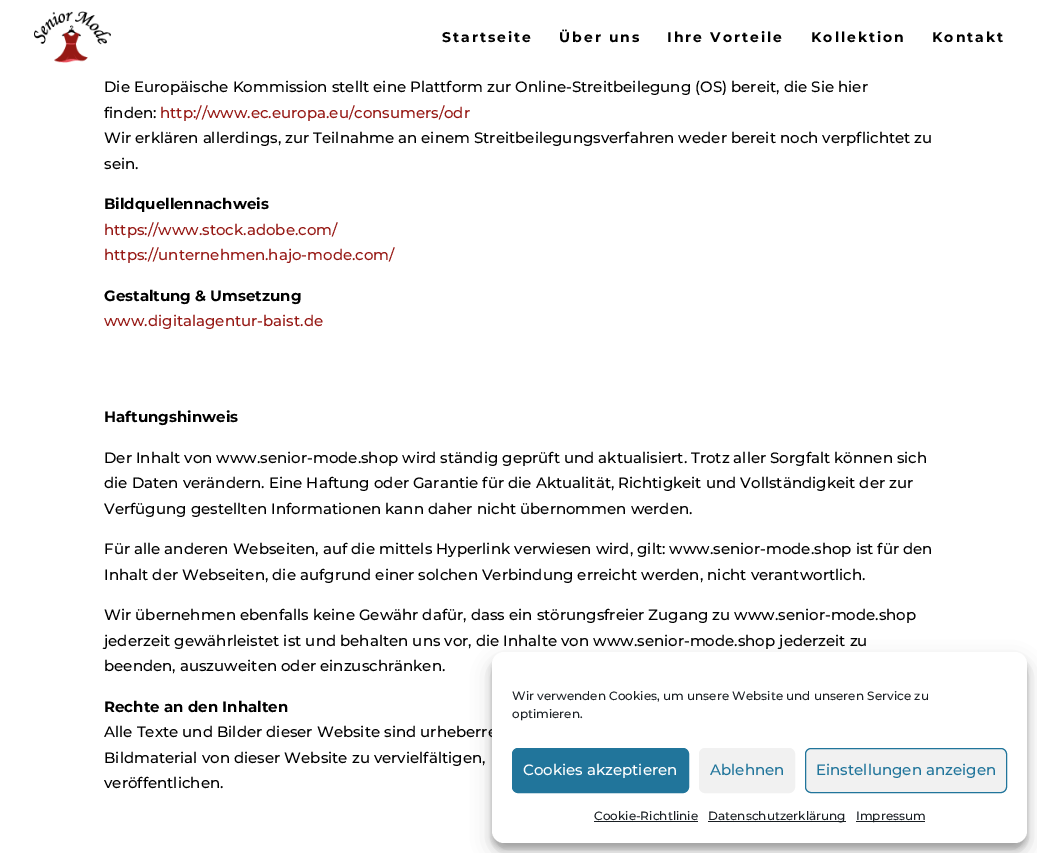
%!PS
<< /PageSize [1037 853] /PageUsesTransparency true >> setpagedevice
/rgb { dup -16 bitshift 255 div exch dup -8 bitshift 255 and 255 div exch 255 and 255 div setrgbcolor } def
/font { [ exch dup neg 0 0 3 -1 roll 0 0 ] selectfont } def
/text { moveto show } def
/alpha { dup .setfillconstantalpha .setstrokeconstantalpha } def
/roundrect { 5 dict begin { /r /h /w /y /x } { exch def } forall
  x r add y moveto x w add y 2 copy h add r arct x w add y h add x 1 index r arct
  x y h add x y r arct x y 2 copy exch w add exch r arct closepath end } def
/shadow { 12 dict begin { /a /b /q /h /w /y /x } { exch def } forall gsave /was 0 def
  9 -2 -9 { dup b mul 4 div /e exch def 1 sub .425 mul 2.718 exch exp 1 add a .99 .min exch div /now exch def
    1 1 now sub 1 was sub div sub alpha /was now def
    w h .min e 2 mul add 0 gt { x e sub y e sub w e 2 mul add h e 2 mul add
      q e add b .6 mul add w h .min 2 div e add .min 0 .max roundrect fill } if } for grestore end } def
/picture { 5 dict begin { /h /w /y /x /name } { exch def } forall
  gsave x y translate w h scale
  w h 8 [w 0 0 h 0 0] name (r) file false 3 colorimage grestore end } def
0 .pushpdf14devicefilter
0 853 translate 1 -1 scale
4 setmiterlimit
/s1 { /Montserrat-Medium 15 font 16#000000 rgb } def
/s2 { /Montserrat-Medium 15 font 16#961814 rgb } def
/s3 { /Montserrat-Bold 15 font 16#000000 rgb } def
/s4 { /Montserrat-Medium 12 font 16#191E23 rgb } def
/s5 { /Montserrat-Medium 15 font 16#FFFFFF rgb } def
/s6 { /Montserrat-Medium 15 font 16#21759B rgb } def
16#FFFFFF rgb
0 0 1037 853 rectfill
(pic1.raw) 34 11 77 52 picture
/Montserrat-Bold 14 font
16#000000 rgb
442 42 moveto 2 0 (Startseite) ashow
559 42 moveto 2 0 (Über uns) ashow
667 42 moveto 2 0 (Ihre Vorteile) ashow
811 42 moveto 2 0 (Kollektion) ashow
932 42 moveto 2 0 (Kontakt) ashow
s1
(Die Europäische Kommission stellt eine Plattform zur Online-Streitbeilegung \(OS\) bereit, die Sie hier) 104 92 text
(finden:) 104 118 text
s2
(http://www.ec.europa.eu/consumers/odr) 160 118 text
s1
(Wir erklären allerdings, zur Teilnahme an einem Streitbeilegungsverfahren weder bereit noch verpflichtet zu) 104 143 text
(sein.) 104 169 text
s3
(Bildquellennachweis) 104 209 text
s2
(https://www.stock.adobe.com/) 104 235 text
(https://unternehmen.hajo-mode.com/) 104 260 text
s3
(Gestaltung & Umsetzung) 104 301 text
s2
(www.digitalagentur-baist.de) 104 326 text
s3
(Haftungshinweis) 104 422 text
s1
(Der Inhalt von www.senior-mode.shop wird ständig geprüft und aktualisiert. Trotz aller Sorgfalt können sich) 104 463 text
(die Daten verändern. Eine Haftung oder Garantie für die Aktualität, Richtigkeit und Vollständigkeit der zur) 104 488 text
(Verfügung gestellten Informationen kann daher nicht übernommen werden.) 104 514 text
(Für alle anderen Webseiten, auf die mittels Hyperlink verwiesen wird, gilt: www.senior-mode.shop ist für den) 104 554 text
(Inhalt der Webseiten, die aufgrund einer solchen Verbindung erreicht werden, nicht verantwortlich.) 104 580 text
(Wir übernehmen ebenfalls keine Gewähr dafür, dass ein störungsfreier Zugang zu www.senior-mode.shop) 104 620 text
(jederzeit gewährleistet ist und behalten uns vor, die Inhalte von www.senior-mode.shop jederzeit zu) 104 646 text
(beenden, auszuweiten oder einzuschränken.) 104 671 text
s3
(Rechte an den Inhalten) 104 712 text
s1
(Alle Texte und Bilder dieser Website sind urheberre) 104 737 text
(Bildmaterial von dieser Website zu vervielfältigen,) 104 763 text
(veröffentlichen.) 104 788 text
492 658 535 191 12 3 0.23 shadow
492 662 535 191 12 10 0.19 shadow
16#FFFFFF rgb
492 652 535 191 12 roundrect fill
s4
(Wir verwenden Cookies, um unsere Website und unseren Service zu) 512 700 text
(optimieren.) 512 718 text
16#21759B rgb
512.5 748.5 176 44 5.5 roundrect gsave fill grestore
stroke
s5
(Cookies akzeptieren) 523 775 text
16#F1F1F1 rgb
699.5 748.5 95 44 5.5 roundrect gsave fill grestore
stroke
s6
(Ablehnen) 710 775 text
16#F1F1F1 rgb
805.5 748.5 201 44 5.5 roundrect gsave fill grestore
16#21759B rgb
stroke
(Einstellungen anzeigen) 816 775 text
s4
(Cookie-Richtlinie) 594 820 text
594 821 104 1 rectfill
708 821 138 1 rectfill
(Datenschutzerklärung) 708 820 text
856 821 69 1 rectfill
(Impressum) 856 820 text
.poppdf14devicefilter showpage
